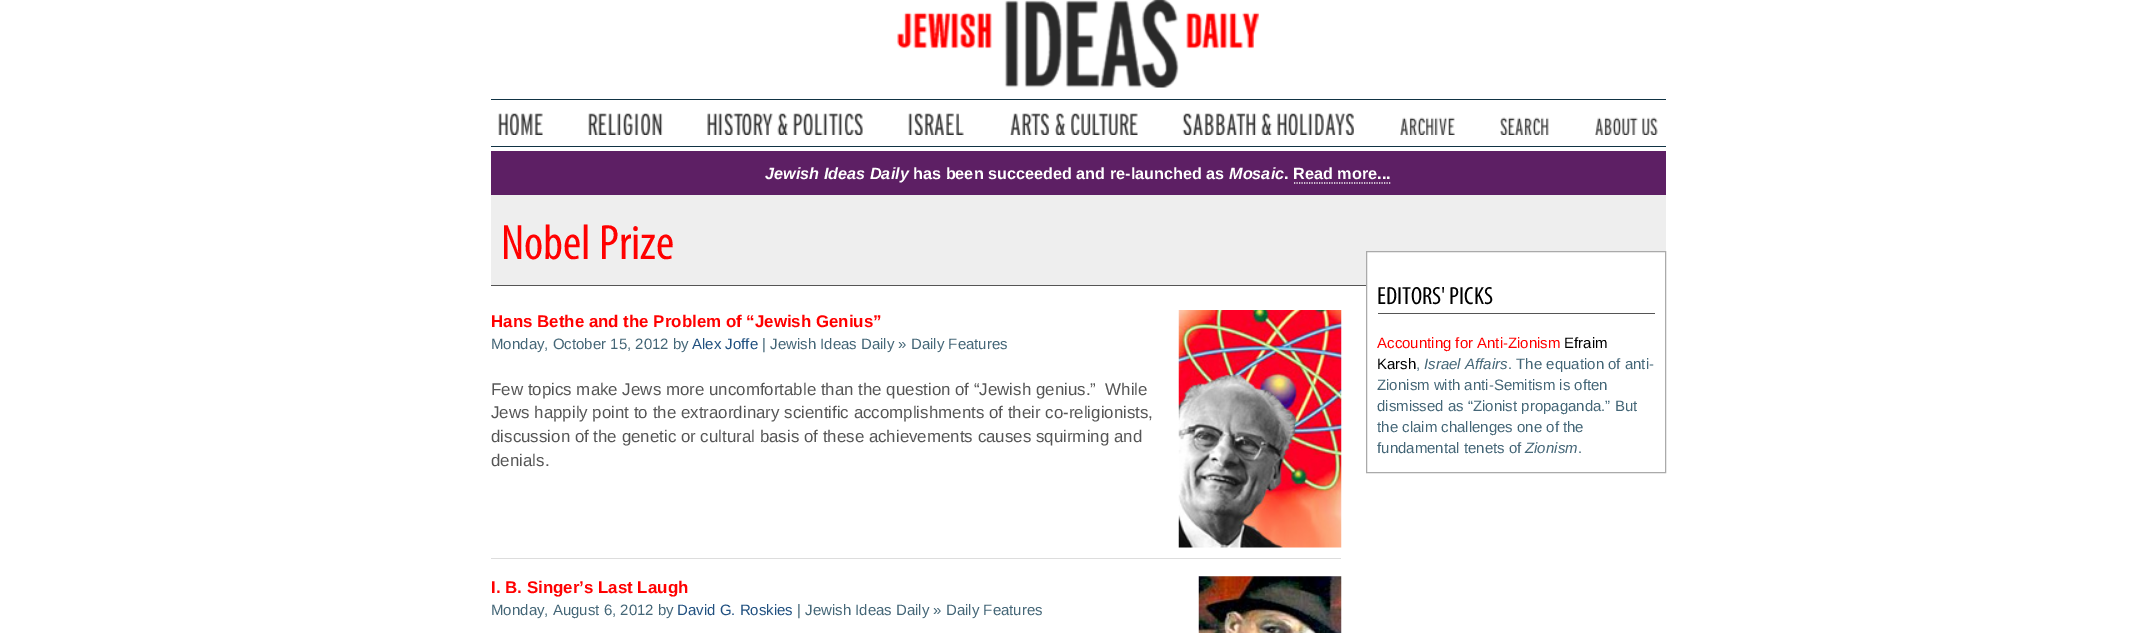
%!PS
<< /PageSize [2156 633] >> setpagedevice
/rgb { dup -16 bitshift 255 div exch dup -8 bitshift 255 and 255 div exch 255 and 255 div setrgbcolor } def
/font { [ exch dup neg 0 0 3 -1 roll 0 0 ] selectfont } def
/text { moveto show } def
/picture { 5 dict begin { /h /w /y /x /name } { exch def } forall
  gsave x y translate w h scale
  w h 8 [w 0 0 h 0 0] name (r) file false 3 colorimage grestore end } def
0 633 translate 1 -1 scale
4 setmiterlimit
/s1 { /LiberationSans-BoldItalic 16.25 font 16#FFFFFF rgb } def
/s2 { /LiberationSans-Bold 16.25 font 16#FFFFFF rgb } def
/s3 { /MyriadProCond-Regular 50 font 16#FF0000 rgb } def
/s4 { /LiberationSans-Bold 16.9 font 16#FF0000 rgb } def
/s5 { /LiberationSans-Regular 15 font 16#446677 rgb } def
/s6 { /LiberationSans-Regular 15 font 16#205080 rgb } def
/s7 { /LiberationSans-Regular 16.9 font 16#555555 rgb } def
/s8 { /MyriadProCond-Regular 25 font 16#000000 rgb } def
/s9 { /LiberationSans-Regular 15 font 16#FF0000 rgb } def
/s10 { /LiberationSans-Regular 15 font 16#000000 rgb } def
/s11 { /LiberationSans-Italic 15 font 16#446677 rgb } def
16#FFFFFF rgb
0 0 2156 633 rectfill
(pic1.raw) 897 0 362 88 picture
16#113344 rgb
491 99 1175 1 rectfill
(pic2.raw) 498 113 45 22 picture
(pic3.raw) 588 113 75 22 picture
(pic4.raw) 707 113 156 22 picture
(pic5.raw) 908 113 56 22 picture
(pic6.raw) 1010 113 128 22 picture
(pic7.raw) 1182 113 172 22 picture
(pic8.raw) 1400 117 55 18 picture
(pic9.raw) 1500 117 49 18 picture
(pic10.raw) 1595 117 63 18 picture
491 146 1175 1 rectfill
16#5D1F64 rgb
491 151 1175 44 rectfill
s1
(Jewish Ideas Daily) 765 179 text
s2
(has been succeeded and re-launched as) 913 179 text
s1
(Mosaic) 1229 179 text
s2
(. Read more...) 1284 179 text
1.2 setlinewidth
[1.25 1.25] 0 setdash
1294 183 moveto 1391 183 lineto stroke
16#EEEEEE rgb
491 195 1175 90 rectfill
16#555555 rgb
491 285 875 1 rectfill
s3
(Nobel Prize) 501 259 text
s4
(Hans Bethe and the Problem of “Jewish Genius”) 491 327 text
(pic11.raw) 1178 310 164 238 picture
s5
(Monday, October 15, 2012 by) 491 349 text
s6
(Alex Joffe) 692 349 text
s5
(| Jewish Ideas Daily » Daily Features) 762 349 text
s7
(Few topics make Jews more uncomfortable than the question of “Jewish genius.”  While) 491 395 text
(Jews happily point to the extraordinary scientific accomplishments of their co-religionists,) 491 418 text
(discussion of the genetic or cultural basis of these achievements causes squirming and) 491 442 text
(denials.) 491 466 text
16#DDDDDD rgb
491 558 850 1 rectfill
s4
(I. B. Singer’s Last Laugh) 491 593 text
(pic12.raw) 1198 576 144 57 picture
s5
(Monday, August 6, 2012 by) 491 615 text
s6
(David G. Roskies) 677 615 text
s5
(| Jewish Ideas Daily » Daily Features) 797 615 text
16#FFFFFF rgb
1367 252 298 33 rectfill
16#AAAAAA rgb
1 setlinewidth
[] 0 setdash
1366.5 251.5 299 221 rectstroke
16#555555 rgb
1378 313 277 1 rectfill
s8
(EDITORS' PICKS) 1377 304 text
s9
(Accounting for Anti-Zionism) 1377 348 text
s10
(Efraim) 1564 348 text
(Karsh) 1377 369 text
s5
(,) 1416 369 text
s11
(Israel Affairs) 1424 369 text
s5
(. The equation of anti-) 1508 369 text
(Zionism with anti-Semitism is often) 1377 390 text
(dismissed as “Zionist propaganda.” But) 1377 411 text
(the claim challenges one of the) 1377 432 text
(fundamental tenets of) 1377 453 text
s11
(Zionism) 1525 453 text
s5
(.) 1578 453 text
showpage
